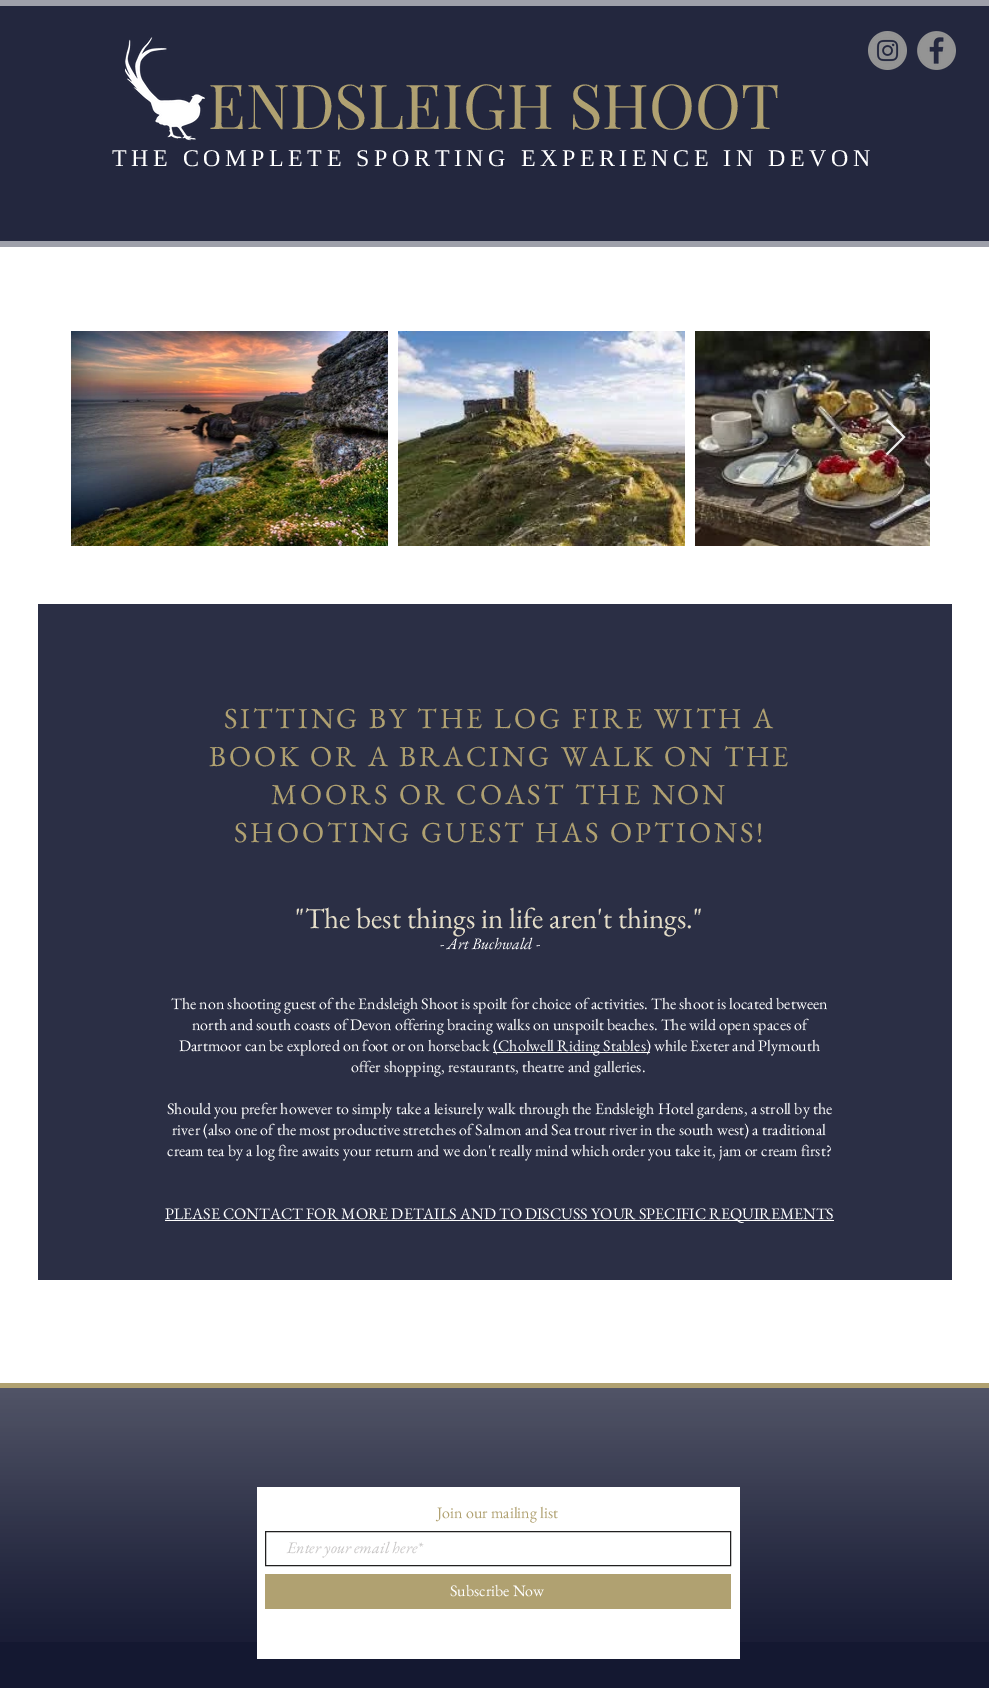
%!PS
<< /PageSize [989 1688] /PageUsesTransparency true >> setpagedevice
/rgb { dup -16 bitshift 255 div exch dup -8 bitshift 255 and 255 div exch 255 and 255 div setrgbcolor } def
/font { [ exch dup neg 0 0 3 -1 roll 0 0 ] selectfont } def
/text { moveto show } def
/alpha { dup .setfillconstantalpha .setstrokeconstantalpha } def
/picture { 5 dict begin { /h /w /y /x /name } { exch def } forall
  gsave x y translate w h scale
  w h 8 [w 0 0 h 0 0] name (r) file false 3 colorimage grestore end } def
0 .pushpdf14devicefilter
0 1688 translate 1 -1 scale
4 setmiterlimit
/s1 { /PlayfairDisplay-Regular 62 font 16#B0A171 rgb } def
/s2 { /EBGaramond-Regular 29 font 16#E5DEC9 rgb } def
/s3 { /EBGaramond-Italic 16 font 16#FFFFFF rgb } def
/s4 { /EBGaramond-Regular 16 font 16#FFFFFF rgb } def
/s5 { /EBGaramond-Regular 16 font 16#B0A171 rgb } def
/s6 { /EBGaramond-Italic 16 font 16#C7C5C5 rgb } def
16#FFFFFF rgb
0 0 989 1688 rectfill
16#23273E rgb
0 6 989 235 rectfill
16#9EA0AA rgb
0 0 989 6 rectfill
0 241 989 6 rectfill
(pic1.raw) 868 31 39 39 picture
(pic2.raw) 917 31 39 39 picture
(pic3.raw) 125 37 80 104 picture
s1
(ENDSLEIGH SHOOT) 208 129 text
/LiberationSerif-Regular 24 font
16#FFFFFF rgb
112 166 moveto 4.55 0 (THE COMPLETE SPORTING EXPERIENCE IN DEVON) ashow
(pic4.raw) 71 331 317 215 picture
(pic5.raw) 398 331 287 215 picture
(pic6.raw) 695 331 235 215 picture
0.9 alpha
886 420.5 moveto 887.5 419 lineto 905.5 437 lineto 887.5 455 lineto 886 453.5 lineto 902.5 437 lineto closepath fill
1 alpha
16#2B2F45 rgb
38 604 914 676 rectfill
/EBGaramond-Regular 29 font
16#B0A171 rgb
224 728 moveto 2.9 0 (SITTING BY THE LOG FIRE WITH A) ashow
209 766 moveto 2.9 0 (BOOK OR A BRACING WALK ON THE) ashow
271 804 moveto 2.9 0 (MOORS OR COAST THE NON) ashow
234 842 moveto 2.9 0 (SHOOTING GUEST HAS OPTIONS!) ashow
s2
("The best things in life aren't things.") 295 928 text
s3
(- Art Buchwald -) 440 949 text
s4
(The non shooting guest of the Endsleigh Shoot is spoilt for choice of activities. The shoot is located between) 171 1009 text
(north and south coasts of Devon offering bracing walks on unspoilt beaches. The wild open spaces of) 192 1030 text
(Dartmoor can be explored on foot or on horseback) 179 1051 text
493 1052 157 1 rectfill
(\(Cholwell Riding Stables\) while Exeter and Plymouth) 493 1051 text
(offer shopping, restaurants, theatre and galleries.) 351 1072 text
(Should you prefer however to simply take a leisurely walk through the Endsleigh Hotel gardens, a stroll by the) 167 1114 text
(river \(also one of the most productive stretches of Salmon and Sea trout river in the south west\) a traditional) 172 1135 text
(cream tea by a log fire awaits your return and we don't really mind which order you take it, jam or cream first?) 167 1156 text
165 1220 669 1 rectfill
(PLEASE CONTACT FOR MORE DETAILS AND TO DISCUSS YOUR SPECIFIC REQUIREMENTS) 165 1219 text
16#141831 rgb
0 1388 989 300 rectfill
(pic7.raw) 0 1388 989 254 picture
16#B0A171 rgb
0 1383 989 5 rectfill
16#FFFFFF rgb
257 1487 483 172 rectfill
s5
(Join our mailing list) 437 1518 text
16#212020 rgb
265.5 1531.5 465 34 rectstroke
s6
(Enter your email here*) 287 1553 text
16#B0A171 rgb
265 1574 466 35 rectfill
s4
(Subscribe Now) 450 1596 text
.poppdf14devicefilter showpage
